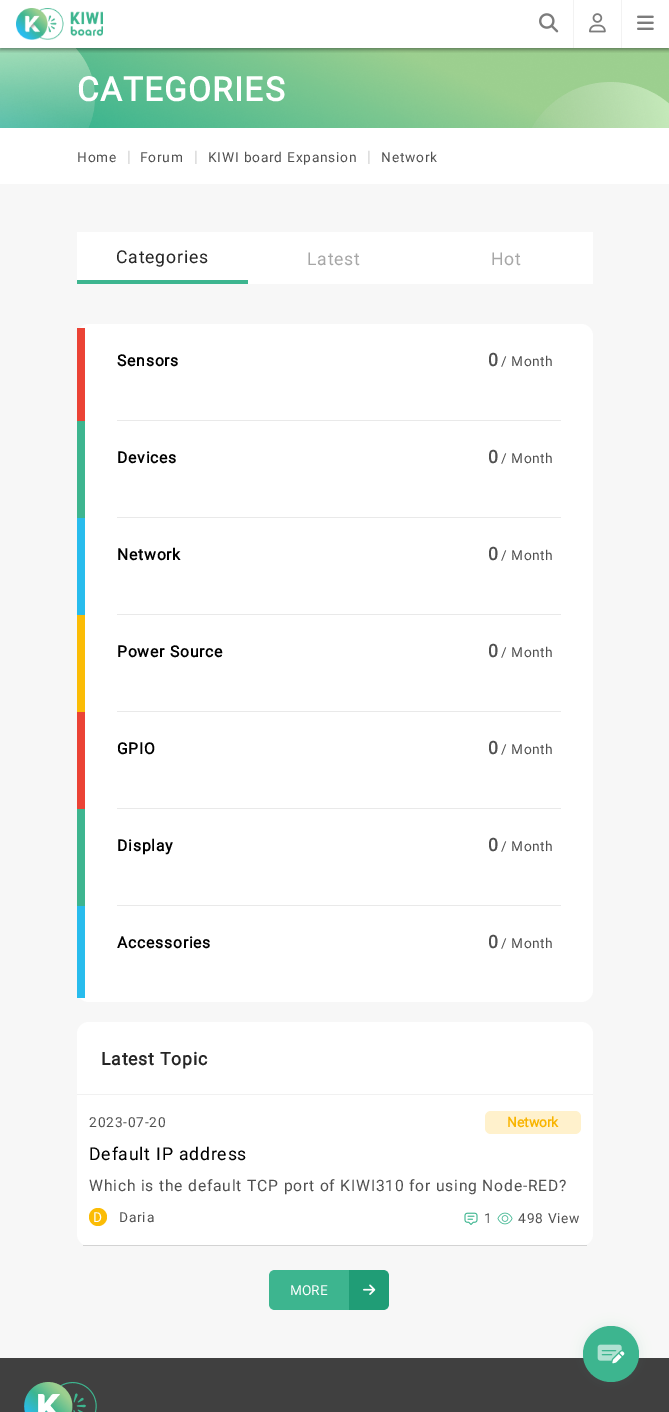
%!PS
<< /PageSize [669 1412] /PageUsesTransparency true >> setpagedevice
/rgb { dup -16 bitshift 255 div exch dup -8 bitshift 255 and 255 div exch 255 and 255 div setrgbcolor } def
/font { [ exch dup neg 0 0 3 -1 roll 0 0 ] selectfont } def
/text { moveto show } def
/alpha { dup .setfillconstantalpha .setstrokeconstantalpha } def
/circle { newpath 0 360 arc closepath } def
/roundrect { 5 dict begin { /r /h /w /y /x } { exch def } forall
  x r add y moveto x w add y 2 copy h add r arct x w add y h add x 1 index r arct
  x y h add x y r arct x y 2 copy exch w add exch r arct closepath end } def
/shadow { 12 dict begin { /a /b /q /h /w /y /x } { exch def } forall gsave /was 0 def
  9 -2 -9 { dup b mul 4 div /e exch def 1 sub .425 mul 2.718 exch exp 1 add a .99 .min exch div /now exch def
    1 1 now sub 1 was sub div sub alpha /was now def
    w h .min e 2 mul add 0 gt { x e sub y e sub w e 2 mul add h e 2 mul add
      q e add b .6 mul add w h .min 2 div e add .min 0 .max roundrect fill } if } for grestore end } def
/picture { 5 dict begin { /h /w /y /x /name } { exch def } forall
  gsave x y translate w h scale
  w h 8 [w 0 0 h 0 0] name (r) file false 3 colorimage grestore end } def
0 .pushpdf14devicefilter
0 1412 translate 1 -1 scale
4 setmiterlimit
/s1 { /Roboto-Regular 16 font 16#D3D3D3 rgb } def
/s2 { /Roboto-Bold 14 font 16#F8B400 rgb } def
/s3 { /Roboto-Regular 14 font 16#FFFFFF rgb } def
16#FFFFFF rgb
0 0 669 1412 rectfill
(pic5.raw) 0 48 669 80 picture
gsave
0 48 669 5 rectclip
16#000000 rgb
0 2 669 48 0 2 0.4 shadow
grestore
(pic1.raw) 16 8 87 32 picture
(pic2.raw) 539 13 20 20 picture
16#F2F2F2 rgb
573 0 1 48 rectfill
(pic3.raw) 589 13 17 20 picture
621 0 1 48 rectfill
(pic4.raw) 637 15 17 15 picture
16#F7F7F7 rgb
0 184 669 1174 rectfill
/Roboto-Bold 34 font
16#FFFFFF rgb
77 101 moveto 1.25 0 (CATEGORIES) ashow
/Roboto-Regular 14 font
16#505050 rgb
77 162 moveto 0.8 0 (Home) ashow
s1
(|) 127 162 text
/Roboto-Regular 14 font
16#505050 rgb
140 162 moveto 0.8 0 (Forum) ashow
s1
(|) 194 162 text
/Roboto-Regular 14 font
16#505050 rgb
208 162 moveto 0.8 0 (KIWI board Expansion) ashow
s1
(|) 367 162 text
/Roboto-Regular 14 font
16#505050 rgb
381 162 moveto 0.8 0 (Network) ashow
16#FFFFFF rgb
77 232 516 52 rectfill
16#3DB58F rgb
77 280 171 4 rectfill
/Roboto-Regular 18 font
16#252525 rgb
116 263 moveto 0.8 0 (Categories) ashow
16#A7A7A7 rgb
307 265 moveto 0.8 0 (Latest) ashow
491 265 moveto 0.8 0 (Hot) ashow
16#FFFFFF rgb
77 324 516 678 12 roundrect fill
16#EB4335 rgb
77 328 8 93 rectfill
/Roboto-Bold 16 font
16#000000 rgb
117 366 moveto 0.8 0 (Sensors) ashow
/Roboto-Bold 18 font
16#505050 rgb
488 366 moveto 0.5 0 (0) ashow
/Roboto-Regular 14 font
501 366 moveto 0.5 0 (/ Month) ashow
16#E9E9E9 rgb
117 420 444 1 rectfill
16#3DB58F rgb
77 421 8 97 rectfill
/Roboto-Bold 16 font
16#000000 rgb
117 463 moveto 0.8 0 (Devices) ashow
/Roboto-Bold 18 font
16#505050 rgb
488 463 moveto 0.5 0 (0) ashow
/Roboto-Regular 14 font
501 463 moveto 0.5 0 (/ Month) ashow
16#E9E9E9 rgb
117 517 444 1 rectfill
16#28BCED rgb
77 518 8 97 rectfill
/Roboto-Bold 16 font
16#000000 rgb
117 560 moveto 0.8 0 (Network) ashow
/Roboto-Bold 18 font
16#505050 rgb
488 560 moveto 0.5 0 (0) ashow
/Roboto-Regular 14 font
501 560 moveto 0.5 0 (/ Month) ashow
16#E9E9E9 rgb
117 614 444 1 rectfill
16#FBBC05 rgb
77 615 8 97 rectfill
/Roboto-Bold 16 font
16#000000 rgb
117 657 moveto 0.8 0 (Power Source) ashow
/Roboto-Bold 18 font
16#505050 rgb
488 657 moveto 0.5 0 (0) ashow
/Roboto-Regular 14 font
501 657 moveto 0.5 0 (/ Month) ashow
16#E9E9E9 rgb
117 711 444 1 rectfill
16#EB4335 rgb
77 712 8 97 rectfill
/Roboto-Bold 16 font
16#000000 rgb
117 754 moveto 0.8 0 (GPIO) ashow
/Roboto-Bold 18 font
16#505050 rgb
488 754 moveto 0.5 0 (0) ashow
/Roboto-Regular 14 font
501 754 moveto 0.5 0 (/ Month) ashow
16#E9E9E9 rgb
117 808 444 1 rectfill
16#3DB58F rgb
77 809 8 97 rectfill
/Roboto-Bold 16 font
16#000000 rgb
117 851 moveto 0.8 0 (Display) ashow
/Roboto-Bold 18 font
16#505050 rgb
488 851 moveto 0.5 0 (0) ashow
/Roboto-Regular 14 font
501 851 moveto 0.5 0 (/ Month) ashow
16#E9E9E9 rgb
117 905 444 1 rectfill
16#28BCED rgb
77 906 8 92 rectfill
/Roboto-Bold 16 font
16#000000 rgb
117 948 moveto 0.8 0 (Accessories) ashow
/Roboto-Bold 18 font
16#505050 rgb
488 948 moveto 0.5 0 (0) ashow
/Roboto-Regular 14 font
501 948 moveto 0.5 0 (/ Month) ashow
16#FFFFFF rgb
77 1022 516 224 12 roundrect fill
16#F1F1F1 rgb
77 1094 516 1 rectfill
/Roboto-Bold 18 font
16#252525 rgb
101 1065 moveto 0.8 0 (Latest Topic) ashow
16#D3D3D3 rgb
83 1245 504 1 rectfill
/Roboto-Regular 14 font
16#505050 rgb
89 1127 moveto 0.8 0 (2023-07-20) ashow
16#FFF1CC rgb
485 1111 96 23 6 roundrect fill
s2
(Network) 507 1127 text
/Roboto-Regular 18 font
16#000000 rgb
89 1160 moveto 0.8 0 (Default IP address) ashow
/Roboto-Regular 16 font
16#505050 rgb
89 1191 moveto 0.8 0 (Which is the default TCP port of KIWI310 for using Node-RED?) ashow
16#FBBC05 rgb
98 1217 9 circle fill
s3
(D) 93 1222 text
16#505050 rgb
119 1222 moveto 0.8 0 (Daria) ashow
(pic6.raw) 464 1212 14 13 picture
484 1223 moveto 0.8 0 (1) ashow
(pic7.raw) 497 1212 16 13 picture
518 1223 moveto 0.8 0 (498 View) ashow
16#3DB58F rgb
275 1270 moveto 349 1270 lineto 349 1310 lineto 275 1310 lineto 271.5 1310 269 1307.5 269 1304 curveto 269 1276 lineto 269 1272.5 271.5 1270 275 1270 curveto closepath fill
s3
(MORE) 290 1295 text
16#209D76 rgb
349 1270 moveto 383 1270 lineto 386.5 1270 389 1272.5 389 1276 curveto 389 1304 lineto 389 1307.5 386.5 1310 383 1310 curveto 349 1310 lineto closepath fill
(pic8.raw) 363 1284 13 11 picture
16#404040 rgb
0 1358 669 54 rectfill
16#657E76 rgb
583 1326 56 56 28 6 0.12 shadow
16#3DB58F rgb
611 1354 28 circle fill
(pic9.raw) 597 1344 28 20 picture
(pic10.raw) 24 1382 73 30 picture
.poppdf14devicefilter showpage
